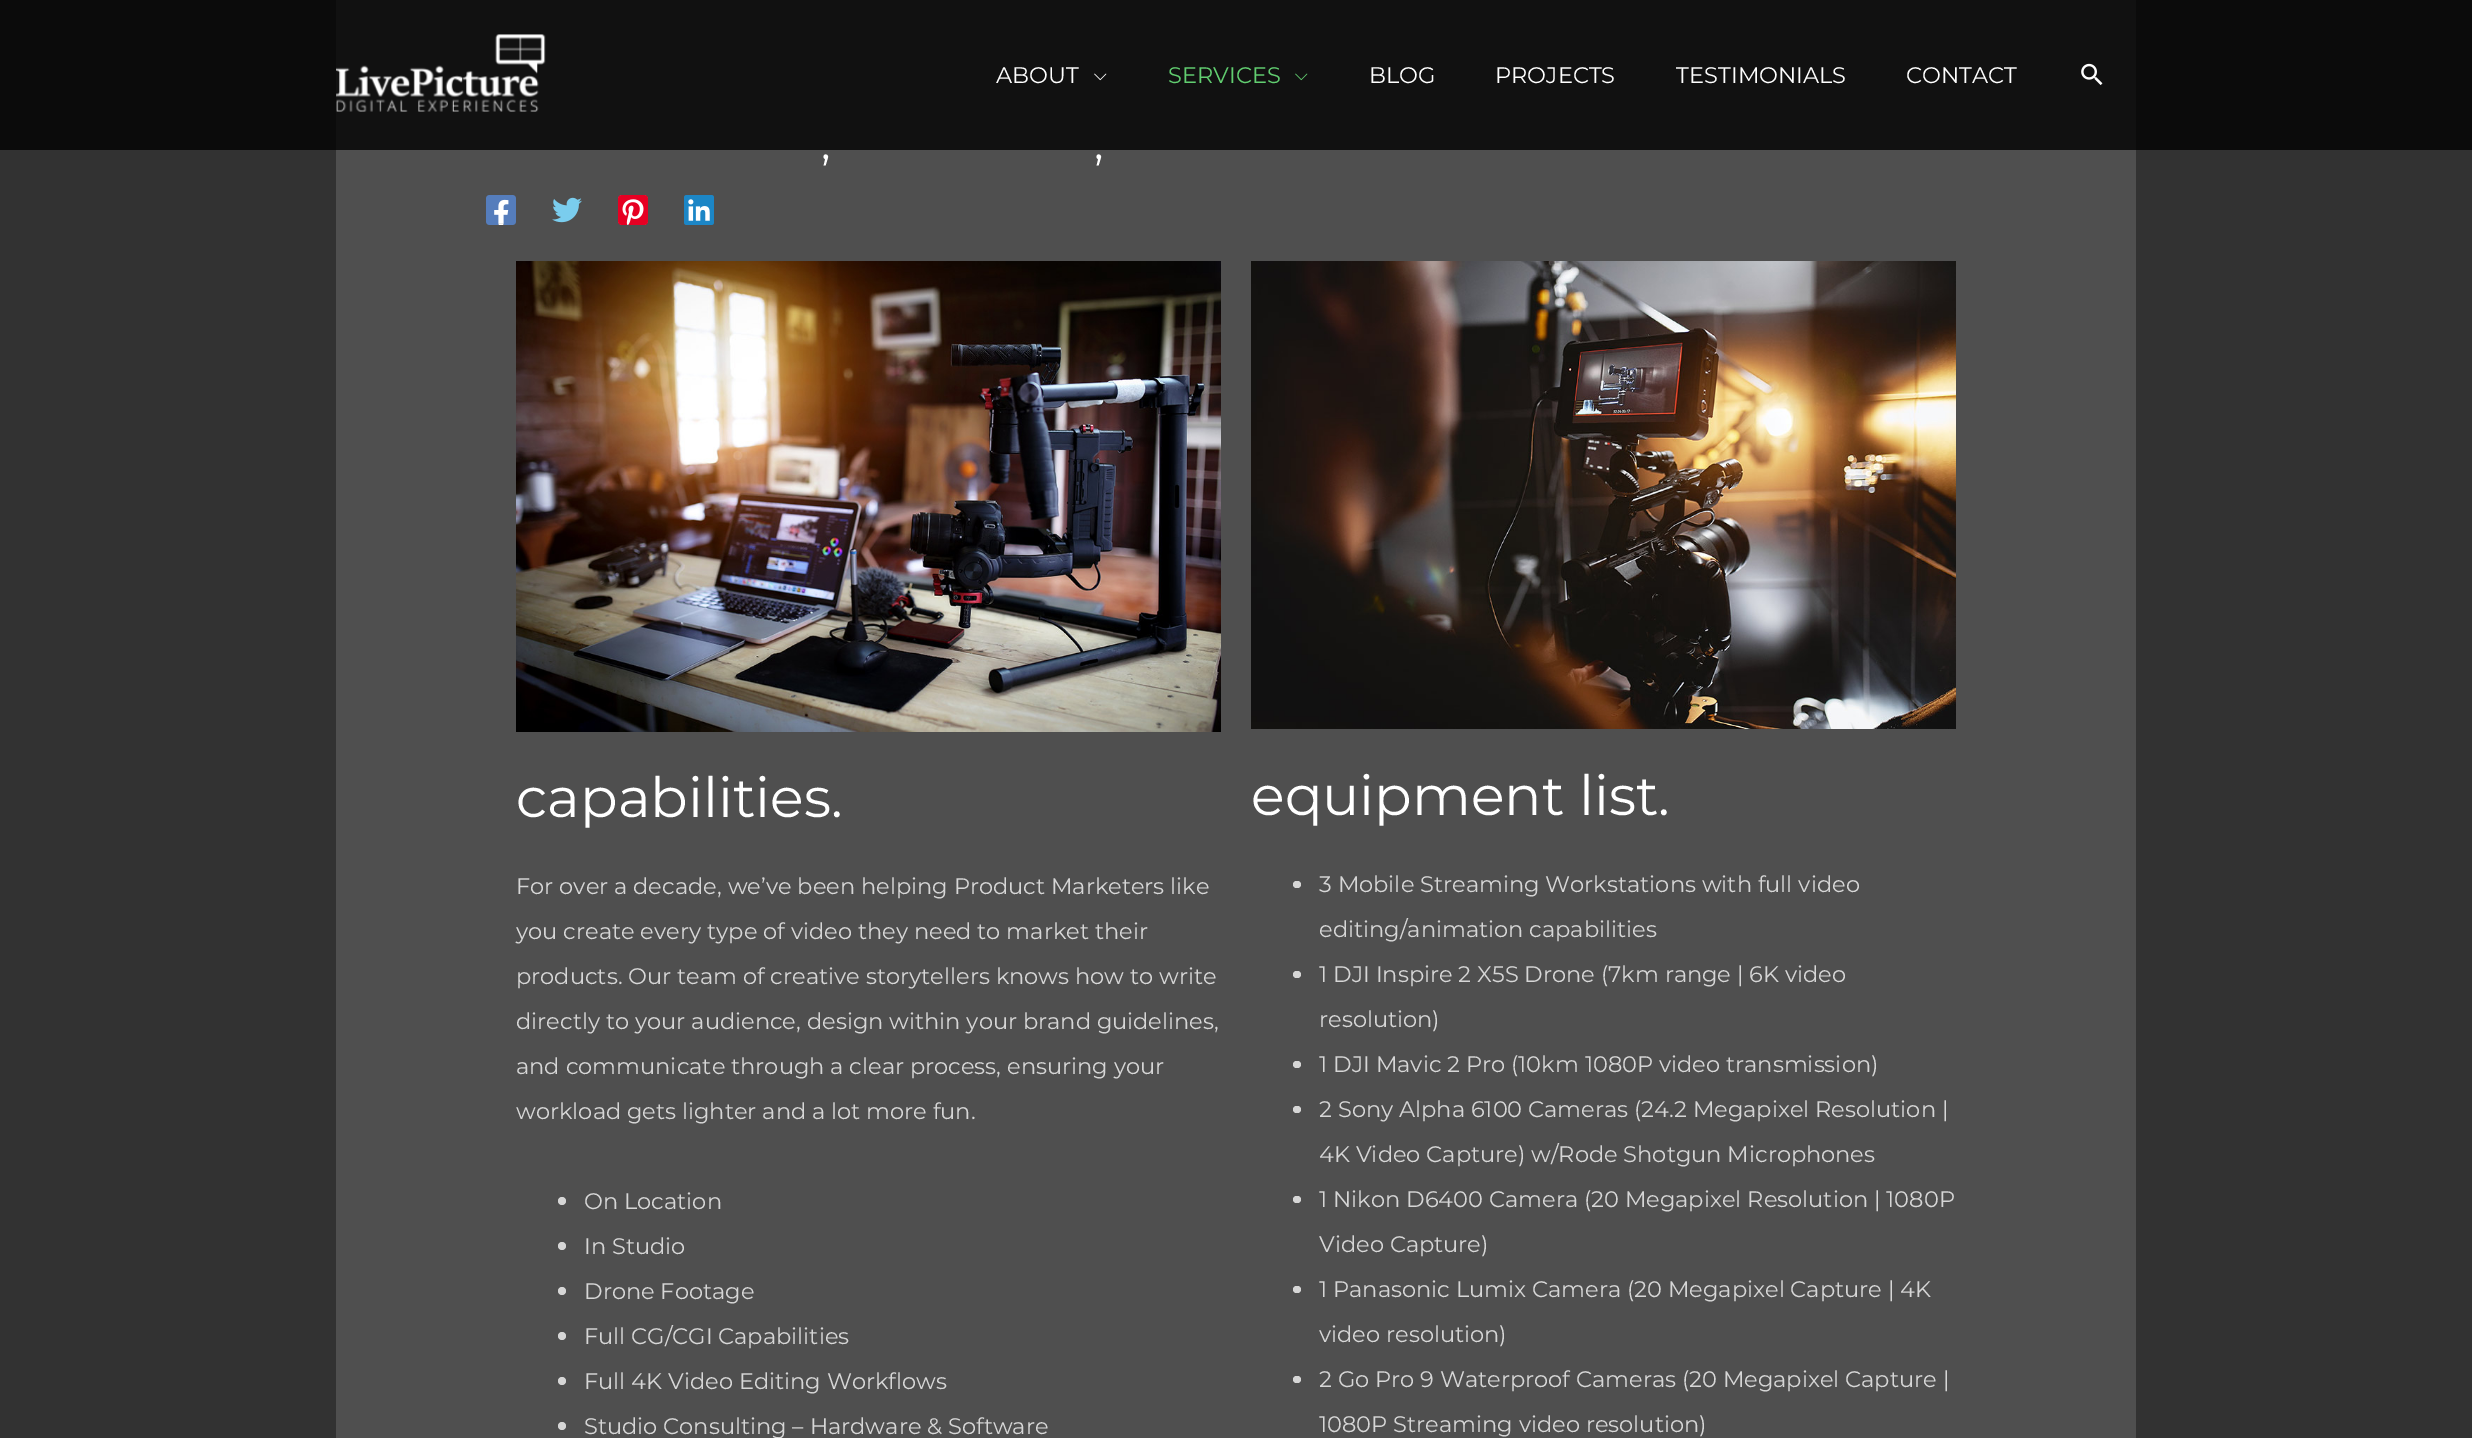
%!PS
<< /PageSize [2472 1438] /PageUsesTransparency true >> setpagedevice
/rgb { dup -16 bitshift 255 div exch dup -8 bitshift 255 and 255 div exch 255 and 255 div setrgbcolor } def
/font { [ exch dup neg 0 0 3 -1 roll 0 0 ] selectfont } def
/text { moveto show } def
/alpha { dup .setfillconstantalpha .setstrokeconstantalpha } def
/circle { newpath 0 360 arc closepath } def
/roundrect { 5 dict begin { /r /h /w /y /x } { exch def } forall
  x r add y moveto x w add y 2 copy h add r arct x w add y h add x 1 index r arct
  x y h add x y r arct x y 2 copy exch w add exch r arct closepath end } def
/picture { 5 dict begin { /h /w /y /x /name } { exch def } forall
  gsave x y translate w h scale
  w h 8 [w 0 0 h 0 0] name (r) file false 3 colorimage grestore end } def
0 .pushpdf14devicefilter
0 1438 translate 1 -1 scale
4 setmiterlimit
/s1 { /Montserrat-Regular 22.5 font 16#FFFFFF rgb } def
/s2 { /Montserrat-Regular 22.5 font 16#61CE70 rgb } def
/s3 { /Montserrat-Regular 45 font 16#FFFFFF rgb } def
/s4 { /Montserrat-Regular 55.5 font 16#FFFFFF rgb } def
/s5 { /Montserrat-Regular 22.5 font 16#D6D6D6 rgb } def
16#323232 rgb
0 0 2472 1438 rectfill
16#4F4F4F rgb
336 0 1800 1438 rectfill
0.78 alpha
16#000000 rgb
0 0 2472 150 rectfill
1 alpha
(pic1.raw) 336 34 210 78 picture
s1
(ABOUT) 996 83 text
(pic2.raw) 1094 73 13 8 picture
s2
(SERVICES) 1168 83 text
(pic3.raw) 1295 73 13 8 picture
s1
(BLOG) 1369 83 text
(PROJECTS) 1495 83 text
(TESTIMONIALS) 1676 83 text
(CONTACT) 1906 83 text
(pic4.raw) 2081 63 22 22 picture
s3
(,) 821 159 text
(,) 1094 159 text
(pic5.raw) 486 195 30 30 picture
(pic6.raw) 552 197 30 26 picture
(pic7.raw) 618 195 30 30 picture
(pic8.raw) 684 195 30 30 picture
(pic9.raw) 516 261 705 471 picture
s4
(capabilities.) 516 817 text
s5
(For over a decade, we’ve been helping Product Marketers like) 516 894 text
(you create every type of video they need to market their) 516 939 text
(products. Our team of creative storytellers knows how to write) 516 984 text
(directly to your audience, design within your brand guidelines,) 516 1029 text
(and communicate through a clear process, ensuring your) 516 1074 text
(workload gets lighter and a lot more fun.) 516 1119 text
562 1201 4 circle fill
(On Location) 584 1209 text
562 1246 4 circle fill
(In Studio) 584 1254 text
562 1291 4 circle fill
(Drone Footage) 584 1299 text
562 1336 4 circle fill
(Full CG/CGI Capabilities) 584 1344 text
562 1381 4 circle fill
(Full 4K Video Editing Workflows) 584 1389 text
562 1426 4 circle fill
(Studio Consulting – Hardware & Software) 584 1434 text
(pic10.raw) 1251 261 705 468 picture
s4
(equipment list.) 1251 815 text
16#D6D6D6 rgb
1293 881 8 7 3.5 roundrect fill
s5
(3 Mobile Streaming Workstations with full video) 1319 892 text
(editing/animation capabilities) 1319 937 text
1293 971 8 7 3.5 roundrect fill
(1 DJI Inspire 2 X5S Drone \(7km range | 6K video) 1319 982 text
(resolution\)) 1319 1027 text
1293 1061 8 7 3.5 roundrect fill
(1 DJI Mavic 2 Pro \(10km 1080P video transmission\)) 1319 1072 text
1293 1106 8 7 3.5 roundrect fill
(2 Sony Alpha 6100 Cameras \(24.2 Megapixel Resolution |) 1319 1117 text
(4K Video Capture\) w/Rode Shotgun Microphones) 1319 1162 text
1293 1196 8 7 3.5 roundrect fill
(1 Nikon D6400 Camera \(20 Megapixel Resolution | 1080P) 1319 1207 text
(Video Capture\)) 1319 1252 text
1293 1286 8 7 3.5 roundrect fill
(1 Panasonic Lumix Camera \(20 Megapixel Capture | 4K) 1319 1297 text
(video resolution\)) 1319 1342 text
1293 1376 8 7 3.5 roundrect fill
(2 Go Pro 9 Waterproof Cameras \(20 Megapixel Capture |) 1319 1387 text
(1080P Streaming video resolution\)) 1319 1432 text
.poppdf14devicefilter showpage
